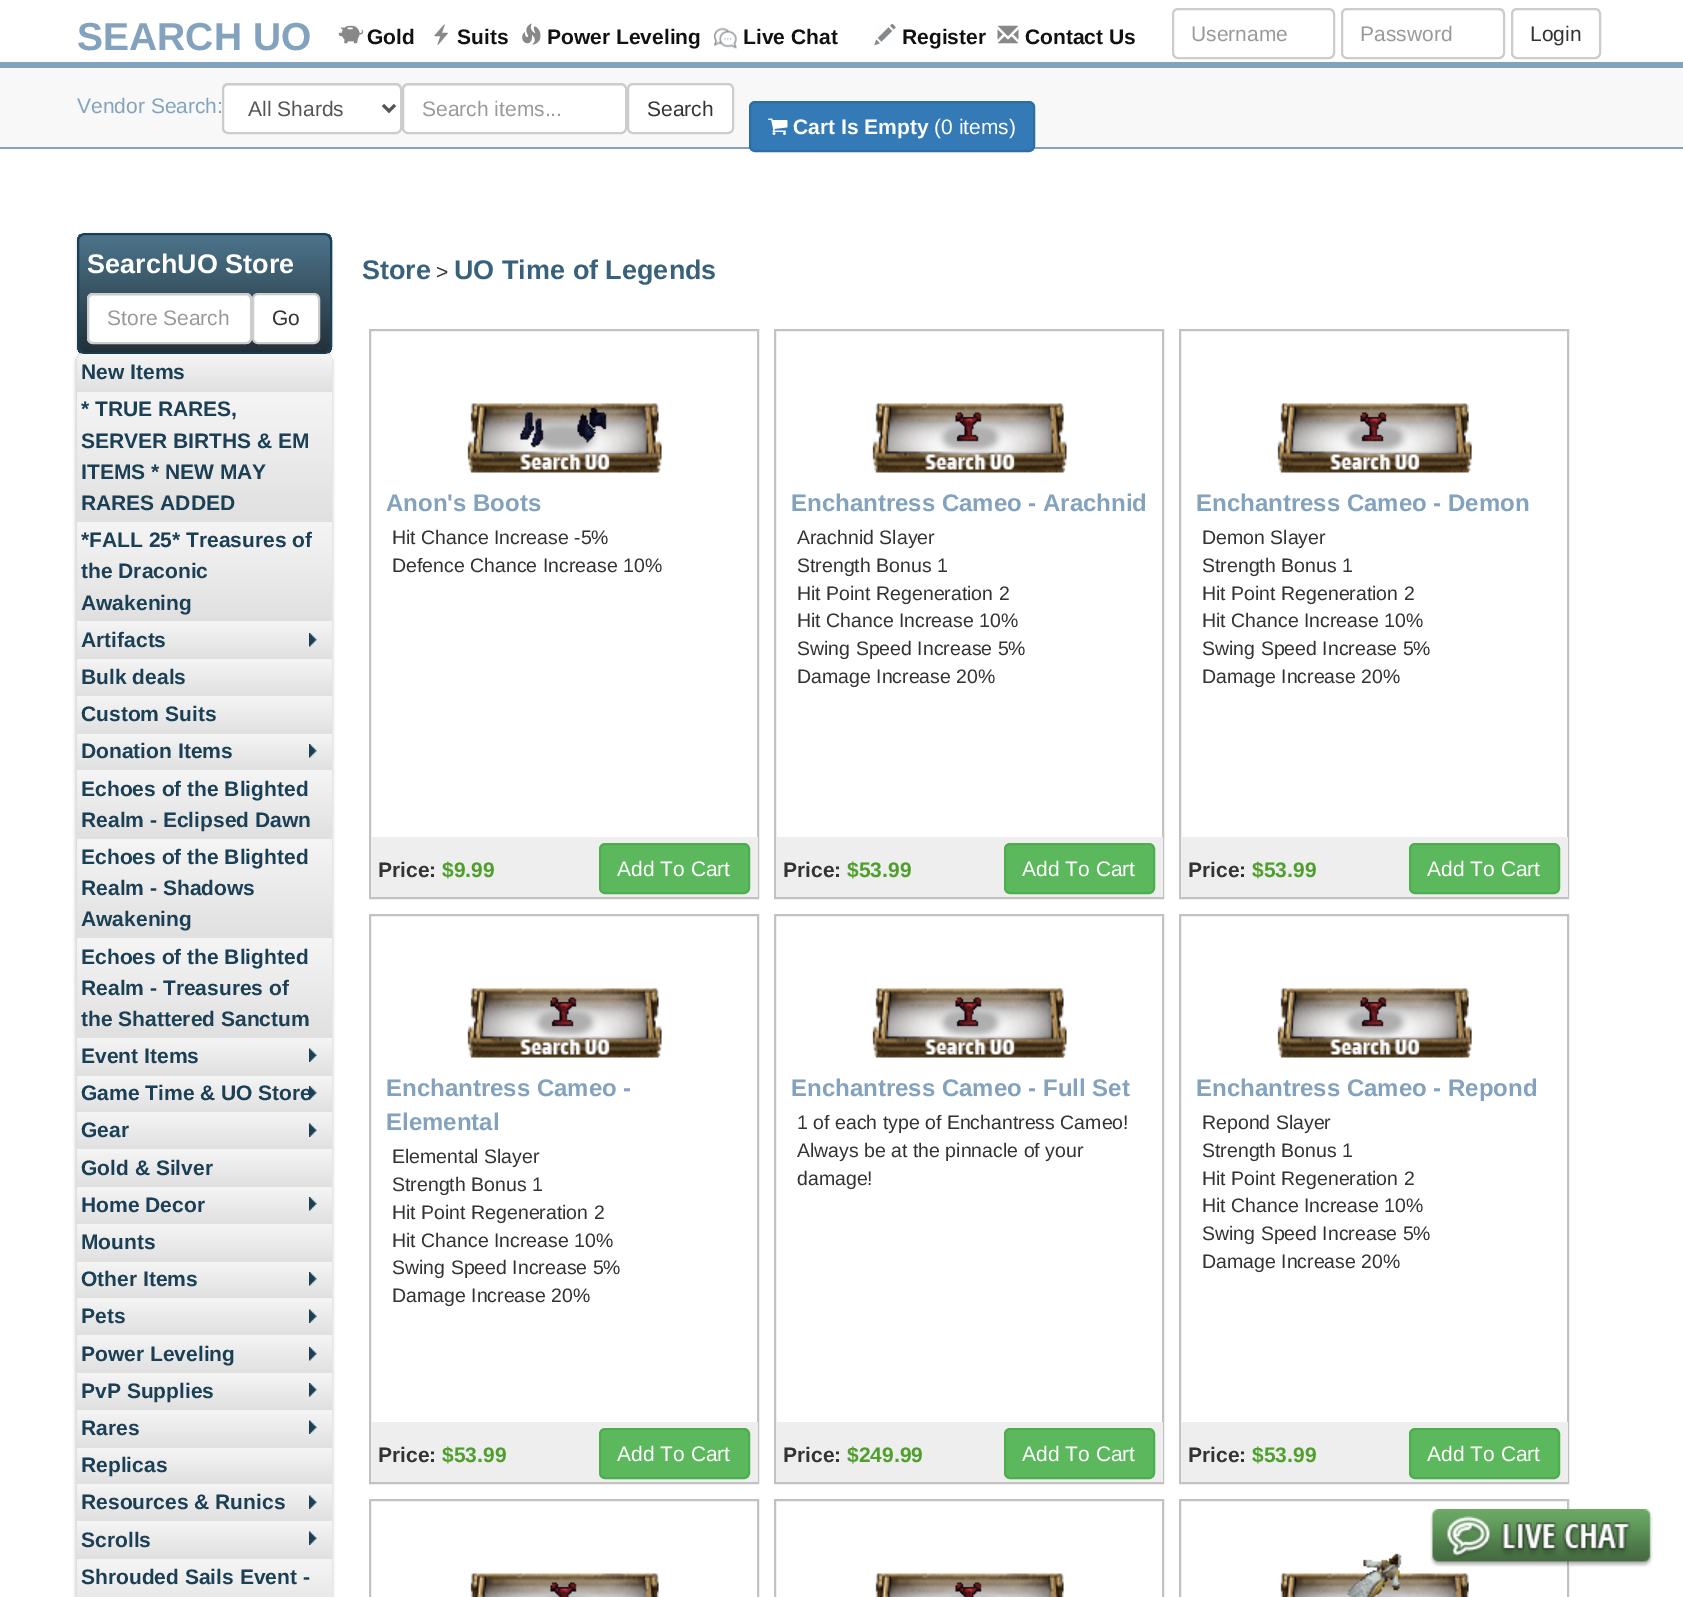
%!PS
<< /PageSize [1683 1597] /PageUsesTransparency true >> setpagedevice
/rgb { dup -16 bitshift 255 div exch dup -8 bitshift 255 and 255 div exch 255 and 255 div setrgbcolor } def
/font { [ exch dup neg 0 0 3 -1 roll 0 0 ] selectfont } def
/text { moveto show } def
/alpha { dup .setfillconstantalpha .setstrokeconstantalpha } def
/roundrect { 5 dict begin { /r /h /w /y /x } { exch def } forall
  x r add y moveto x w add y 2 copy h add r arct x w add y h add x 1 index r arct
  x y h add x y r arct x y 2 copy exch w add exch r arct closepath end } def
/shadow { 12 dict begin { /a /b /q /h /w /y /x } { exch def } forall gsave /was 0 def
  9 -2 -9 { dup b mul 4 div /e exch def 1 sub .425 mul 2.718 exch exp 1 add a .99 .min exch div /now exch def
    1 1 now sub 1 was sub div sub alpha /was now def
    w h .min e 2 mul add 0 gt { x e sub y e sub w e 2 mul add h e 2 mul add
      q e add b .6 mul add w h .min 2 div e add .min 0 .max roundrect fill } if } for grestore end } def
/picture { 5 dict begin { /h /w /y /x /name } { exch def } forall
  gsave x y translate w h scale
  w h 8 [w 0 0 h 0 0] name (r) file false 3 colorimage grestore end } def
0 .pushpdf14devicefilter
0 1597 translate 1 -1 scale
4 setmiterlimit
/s1 { /LiberationSans-Bold 39 font 16#83A2BD rgb } def
/s2 { /LiberationSans-Bold 21 font 16#111111 rgb } def
/s3 { /LiberationSans-Regular 21 font 16#999999 rgb } def
/s4 { /LiberationSans-Regular 21 font 16#333333 rgb } def
/s5 { /LiberationSans-Regular 21 font 16#83A2BD rgb } def
/s6 { /LiberationSans-Regular 21 font 16#555555 rgb } def
/s7 { /LiberationSans-Bold 21 font 16#FFFFFF rgb } def
/s8 { /LiberationSans-Regular 21 font 16#FFFFFF rgb } def
/s9 { /LiberationSans-Bold 27 font 16#FFFFFF rgb } def
/s10 { /LiberationSans-Bold 21 font 16#1B3F54 rgb } def
/s11 { /LiberationSans-Bold 27 font 16#38627B rgb } def
/s12 { /LiberationSans-Bold 24 font 16#83A2BD rgb } def
/s13 { /LiberationSans-Regular 19.5 font 16#333333 rgb } def
/s14 { /LiberationSans-Bold 21 font 16#333333 rgb } def
/s15 { /LiberationSans-Bold 21 font 16#4F9F2C rgb } def
16#FFFFFF rgb
0 0 1683 1597 rectfill
16#83A2BD rgb
0 62 1683 6 rectfill
s1
(SEARCH UO) 77 50 text
(pic1.raw) 338 25 26 19 picture
s2
(Gold) 367 44 text
(pic2.raw) 434 24 14 21 picture
(Suits) 457 44 text
(pic3.raw) 522 23 19 22 picture
(Power Leveling) 547 44 text
(pic4.raw) 714 27 23 22 picture
(Live Chat) 743 44 text
(pic5.raw) 874 23 22 23 picture
(Register) 902 44 text
(pic6.raw) 997 25 22 19 picture
(Contact Us) 1025 44 text
16#ECECEC rgb
1178 10 moveto 1329 10 lineto 1331 10 1334 13 1334 15 curveto 1334 14 lineto 1334 11 1332 9 1329 9 curveto 1178 9 lineto 1175 9 1173 11 1173 14 curveto 1173 15 lineto 1173 13 1175 10 1178 10 curveto closepath fill
16#CCCCCC rgb
2 setlinewidth
1173 9 161 49 5 roundrect stroke
s3
(Username) 1191 41 text
16#ECECEC rgb
1347 10 moveto 1498 10 lineto 1501 10 1503 13 1503 15 curveto 1503 14 lineto 1503 11 1501 9 1498 9 curveto 1348 9 lineto 1346 9 1344 10 1343 12 curveto 1344 11 1346 10 1347 10 curveto closepath fill
16#CCCCCC rgb
1342 9 162 49 5 roundrect stroke
s3
(Password) 1360 41 text
16#CCCCCC rgb
1512 9 88 49 5 roundrect stroke
s4
(Login) 1530 41 text
16#F8F8F8 rgb
0 68 1683 79 rectfill
16#83A2BD rgb
0 147 1683 2 rectfill
(Vendor Search:) 77 113 text
16#FFFFFF rgb
222 83 180 51 6 roundrect fill
16#ECECEC rgb
228 86 moveto 396 86 lineto 398 86 400 88 400 90 curveto 400 130 lineto 401 129 401 128 401 127 curveto 401 89 lineto 401 86 399 84 396 84 curveto 229 84 lineto 226 84 224 86 224 89 curveto 224 90 lineto 224 88 226 86 228 86 curveto closepath fill
16#CCCCCC rgb
223 84 178 49 5 roundrect stroke
16#555555 rgb
3 setlinewidth
383 105 moveto 389 111 lineto 395 105 lineto stroke
(All Shards) 248 116 text
16#FFFFFF rgb
402 83 225 51 6 roundrect fill
16#ECECEC rgb
408 86 moveto 621 86 lineto 623 86 626 88 626 90 curveto 626 89 lineto 626 86 624 84 621 84 curveto 409 84 lineto 406 84 404 86 404 89 curveto 404 90 lineto 404 88 406 86 408 86 curveto closepath fill
16#CCCCCC rgb
2 setlinewidth
403 84 223 49 5 roundrect stroke
s3
(Search items...) 422 116 text
16#FFFFFF rgb
628 84 105 49 5 roundrect gsave fill grestore
16#CCCCCC rgb
stroke
s4
(Search) 647 116 text
16#337AB7 rgb
750 102 284 49 5 roundrect gsave fill grestore
16#2E6DA4 rgb
stroke
(pic7.raw) 768 118 20 17 picture
s7
(Cart Is Empty) 793 134 text
s8
(\(0 items\)) 934 134 text
16#C2C2C2 rgb
1180 1500 388 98 rectstroke
(pic21.raw) 1280 1553 189 44 picture
(pic8.raw) 1430 1509 223 58 picture
16#000000 rgb
77 234 255 122 8 1.5 0.15 shadow
gsave
77 233 255 121 8 roundrect clip newpath
gsave 77 234 moveto 332 234 lineto 332 353 lineto 77 353 lineto closepath clip newpath
<< /ShadingType 2 /ColorSpace /DeviceRGB /Coords [204 234 204 353] /Extend [true true] /Function << /FunctionType 2 /Domain [0 1] /C0 [0.302 0.459 0.549] /C1 [0.133 0.188 0.22] /N 1 >> >> shfill grestore
grestore
16#1B3F54 rgb
78 234 253 119 7 roundrect stroke
s9
(SearchUO Store) 87 273 text
87 293 165 51 6 roundrect fill
16#ECECEC rgb
93 296 moveto 246 296 lineto 248 296 250 298 250 300 curveto 250 340 lineto 251 339 251 338 251 337 curveto 251 299 lineto 251 296 249 294 246 294 curveto 94 294 lineto 92 294 90 296 89 298 curveto 90 297 92 296 93 296 curveto closepath fill
16#CCCCCC rgb
88 294 163 49 5 roundrect stroke
s3
(Store Search) 107 325 text
16#FFFFFF rgb
253 294 66 49 5 roundrect gsave fill grestore
16#CCCCCC rgb
stroke
s4
(Go) 272 325 text
16#000000 rgb
75 353 258 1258 9 1.5 0.15 shadow
gsave 85 354 moveto 324 354 lineto 328.5 354 332 357.5 332 362 curveto 332 392 lineto 77 392 lineto 77 362 lineto 77 357.5 80.5 354 85 354 curveto closepath clip newpath
<< /ShadingType 2 /ColorSpace /DeviceRGB /Coords [204 354 204 392] /Extend [true true] /Function << /FunctionType 2 /Domain [0 1] /C0 [0.961 0.961 0.961] /C1 [0.878 0.878 0.878] /N 1 >> >> shfill grestore
s10
(New Items) 81 379 text
gsave 77 392 moveto 332 392 lineto 332 522 lineto 77 522 lineto closepath clip newpath
<< /ShadingType 2 /ColorSpace /DeviceRGB /Coords [204 392 204 522] /Extend [true true] /Function << /FunctionType 2 /Domain [0 1] /C0 [0.961 0.961 0.961] /C1 [0.878 0.878 0.878] /N 1 >> >> shfill grestore
(* TRUE RARES,) 81 416 text
(SERVER BIRTHS & EM) 81 448 text
(ITEMS * NEW MAY) 81 479 text
(RARES ADDED) 81 510 text
gsave 77 522 moveto 332 522 lineto 332 621 lineto 77 621 lineto closepath clip newpath
<< /ShadingType 2 /ColorSpace /DeviceRGB /Coords [204 522 204 621] /Extend [true true] /Function << /FunctionType 2 /Domain [0 1] /C0 [0.961 0.961 0.961] /C1 [0.878 0.878 0.878] /N 1 >> >> shfill grestore
(*FALL 25* Treasures of) 81 547 text
(the Draconic) 81 578 text
(Awakening) 81 610 text
gsave 77 621 moveto 332 621 lineto 332 659 lineto 77 659 lineto closepath clip newpath
<< /ShadingType 2 /ColorSpace /DeviceRGB /Coords [204 621 204 659] /Extend [true true] /Function << /FunctionType 2 /Domain [0 1] /C0 [0.961 0.961 0.961] /C1 [0.878 0.878 0.878] /N 1 >> >> shfill grestore
(Artifacts) 81 647 text
(pic9.raw) 309 633 8 14 picture
gsave 77 659 moveto 332 659 lineto 332 696 lineto 77 696 lineto closepath clip newpath
<< /ShadingType 2 /ColorSpace /DeviceRGB /Coords [204 659 204 696] /Extend [true true] /Function << /FunctionType 2 /Domain [0 1] /C0 [0.961 0.961 0.961] /C1 [0.878 0.878 0.878] /N 1 >> >> shfill grestore
(Bulk deals) 81 684 text
gsave 77 696 moveto 332 696 lineto 332 734 lineto 77 734 lineto closepath clip newpath
<< /ShadingType 2 /ColorSpace /DeviceRGB /Coords [204 696 204 734] /Extend [true true] /Function << /FunctionType 2 /Domain [0 1] /C0 [0.961 0.961 0.961] /C1 [0.878 0.878 0.878] /N 1 >> >> shfill grestore
(Custom Suits) 81 721 text
gsave 77 734 moveto 332 734 lineto 332 770 lineto 77 770 lineto closepath clip newpath
<< /ShadingType 2 /ColorSpace /DeviceRGB /Coords [204 734 204 770] /Extend [true true] /Function << /FunctionType 2 /Domain [0 1] /C0 [0.961 0.961 0.961] /C1 [0.878 0.878 0.878] /N 1 >> >> shfill grestore
(Donation Items) 81 758 text
(pic10.raw) 309 744 8 14 picture
gsave 77 770 moveto 332 770 lineto 332 839 lineto 77 839 lineto closepath clip newpath
<< /ShadingType 2 /ColorSpace /DeviceRGB /Coords [204 770 204 839] /Extend [true true] /Function << /FunctionType 2 /Domain [0 1] /C0 [0.961 0.961 0.961] /C1 [0.878 0.878 0.878] /N 1 >> >> shfill grestore
(Echoes of the Blighted) 81 796 text
(Realm - Eclipsed Dawn) 81 827 text
gsave 77 839 moveto 332 839 lineto 332 938 lineto 77 938 lineto closepath clip newpath
<< /ShadingType 2 /ColorSpace /DeviceRGB /Coords [204 839 204 938] /Extend [true true] /Function << /FunctionType 2 /Domain [0 1] /C0 [0.961 0.961 0.961] /C1 [0.878 0.878 0.878] /N 1 >> >> shfill grestore
(Echoes of the Blighted) 81 864 text
(Realm - Shadows) 81 895 text
(Awakening) 81 926 text
gsave 77 938 moveto 332 938 lineto 332 1038 lineto 77 1038 lineto closepath clip newpath
<< /ShadingType 2 /ColorSpace /DeviceRGB /Coords [204 938 204 1038] /Extend [true true] /Function << /FunctionType 2 /Domain [0 1] /C0 [0.961 0.961 0.961] /C1 [0.878 0.878 0.878] /N 1 >> >> shfill grestore
(Echoes of the Blighted) 81 964 text
(Realm - Treasures of) 81 995 text
(the Shattered Sanctum) 81 1026 text
gsave 77 1038 moveto 332 1038 lineto 332 1076 lineto 77 1076 lineto closepath clip newpath
<< /ShadingType 2 /ColorSpace /DeviceRGB /Coords [204 1038 204 1076] /Extend [true true] /Function << /FunctionType 2 /Domain [0 1] /C0 [0.961 0.961 0.961] /C1 [0.878 0.878 0.878] /N 1 >> >> shfill grestore
(Event Items) 81 1063 text
(pic11.raw) 309 1048 8 14 picture
gsave 77 1076 moveto 332 1076 lineto 332 1112 lineto 77 1112 lineto closepath clip newpath
<< /ShadingType 2 /ColorSpace /DeviceRGB /Coords [204 1076 204 1112] /Extend [true true] /Function << /FunctionType 2 /Domain [0 1] /C0 [0.961 0.961 0.961] /C1 [0.878 0.878 0.878] /N 1 >> >> shfill grestore
(Game Time & UO Store) 81 1100 text
(pic12.raw) 309 1086 8 14 picture
gsave 77 1112 moveto 332 1112 lineto 332 1149 lineto 77 1149 lineto closepath clip newpath
<< /ShadingType 2 /ColorSpace /DeviceRGB /Coords [204 1112 204 1149] /Extend [true true] /Function << /FunctionType 2 /Domain [0 1] /C0 [0.961 0.961 0.961] /C1 [0.878 0.878 0.878] /N 1 >> >> shfill grestore
(Gear) 81 1137 text
(pic13.raw) 309 1123 8 14 picture
gsave 77 1149 moveto 332 1149 lineto 332 1187 lineto 77 1187 lineto closepath clip newpath
<< /ShadingType 2 /ColorSpace /DeviceRGB /Coords [204 1149 204 1187] /Extend [true true] /Function << /FunctionType 2 /Domain [0 1] /C0 [0.961 0.961 0.961] /C1 [0.878 0.878 0.878] /N 1 >> >> shfill grestore
(Gold & Silver) 81 1175 text
gsave 77 1187 moveto 332 1187 lineto 332 1224 lineto 77 1224 lineto closepath clip newpath
<< /ShadingType 2 /ColorSpace /DeviceRGB /Coords [204 1187 204 1224] /Extend [true true] /Function << /FunctionType 2 /Domain [0 1] /C0 [0.961 0.961 0.961] /C1 [0.878 0.878 0.878] /N 1 >> >> shfill grestore
(Home Decor) 81 1212 text
(pic14.raw) 309 1197 8 14 picture
gsave 77 1224 moveto 332 1224 lineto 332 1262 lineto 77 1262 lineto closepath clip newpath
<< /ShadingType 2 /ColorSpace /DeviceRGB /Coords [204 1224 204 1262] /Extend [true true] /Function << /FunctionType 2 /Domain [0 1] /C0 [0.961 0.961 0.961] /C1 [0.878 0.878 0.878] /N 1 >> >> shfill grestore
(Mounts) 81 1249 text
gsave 77 1262 moveto 332 1262 lineto 332 1298 lineto 77 1298 lineto closepath clip newpath
<< /ShadingType 2 /ColorSpace /DeviceRGB /Coords [204 1262 204 1298] /Extend [true true] /Function << /FunctionType 2 /Domain [0 1] /C0 [0.961 0.961 0.961] /C1 [0.878 0.878 0.878] /N 1 >> >> shfill grestore
(Other Items) 81 1286 text
(pic10.raw) 309 1272 8 14 picture
gsave 77 1298 moveto 332 1298 lineto 332 1335 lineto 77 1335 lineto closepath clip newpath
<< /ShadingType 2 /ColorSpace /DeviceRGB /Coords [204 1298 204 1335] /Extend [true true] /Function << /FunctionType 2 /Domain [0 1] /C0 [0.961 0.961 0.961] /C1 [0.878 0.878 0.878] /N 1 >> >> shfill grestore
(Pets) 81 1323 text
(pic13.raw) 309 1309 8 14 picture
gsave 77 1335 moveto 332 1335 lineto 332 1373 lineto 77 1373 lineto closepath clip newpath
<< /ShadingType 2 /ColorSpace /DeviceRGB /Coords [204 1335 204 1373] /Extend [true true] /Function << /FunctionType 2 /Domain [0 1] /C0 [0.961 0.961 0.961] /C1 [0.878 0.878 0.878] /N 1 >> >> shfill grestore
(Power Leveling) 81 1361 text
(pic9.raw) 309 1347 8 14 picture
gsave 77 1373 moveto 332 1373 lineto 332 1410 lineto 77 1410 lineto closepath clip newpath
<< /ShadingType 2 /ColorSpace /DeviceRGB /Coords [204 1373 204 1410] /Extend [true true] /Function << /FunctionType 2 /Domain [0 1] /C0 [0.961 0.961 0.961] /C1 [0.878 0.878 0.878] /N 1 >> >> shfill grestore
(PvP Supplies) 81 1398 text
(pic14.raw) 309 1383 8 14 picture
gsave 77 1410 moveto 332 1410 lineto 332 1448 lineto 77 1448 lineto closepath clip newpath
<< /ShadingType 2 /ColorSpace /DeviceRGB /Coords [204 1410 204 1448] /Extend [true true] /Function << /FunctionType 2 /Domain [0 1] /C0 [0.961 0.961 0.961] /C1 [0.878 0.878 0.878] /N 1 >> >> shfill grestore
(Rares) 81 1435 text
(pic11.raw) 309 1420 8 14 picture
gsave 77 1448 moveto 332 1448 lineto 332 1484 lineto 77 1484 lineto closepath clip newpath
<< /ShadingType 2 /ColorSpace /DeviceRGB /Coords [204 1448 204 1484] /Extend [true true] /Function << /FunctionType 2 /Domain [0 1] /C0 [0.961 0.961 0.961] /C1 [0.878 0.878 0.878] /N 1 >> >> shfill grestore
(Replicas) 81 1472 text
gsave 77 1484 moveto 332 1484 lineto 332 1521 lineto 77 1521 lineto closepath clip newpath
<< /ShadingType 2 /ColorSpace /DeviceRGB /Coords [204 1484 204 1521] /Extend [true true] /Function << /FunctionType 2 /Domain [0 1] /C0 [0.961 0.961 0.961] /C1 [0.878 0.878 0.878] /N 1 >> >> shfill grestore
(Resources & Runics) 81 1509 text
(pic13.raw) 309 1495 8 14 picture
gsave 77 1521 moveto 332 1521 lineto 332 1559 lineto 77 1559 lineto closepath clip newpath
<< /ShadingType 2 /ColorSpace /DeviceRGB /Coords [204 1521 204 1559] /Extend [true true] /Function << /FunctionType 2 /Domain [0 1] /C0 [0.961 0.961 0.961] /C1 [0.878 0.878 0.878] /N 1 >> >> shfill grestore
(Scrolls) 81 1547 text
(pic11.raw) 309 1531 8 14 picture
gsave 77 1559 moveto 332 1559 lineto 332 1597 lineto 77 1597 lineto closepath clip newpath
<< /ShadingType 2 /ColorSpace /DeviceRGB /Coords [204 1559 204 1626] /Extend [true true] /Function << /FunctionType 2 /Domain [0 1] /C0 [0.961 0.961 0.961] /C1 [0.878 0.878 0.878] /N 1 >> >> shfill grestore
(Shrouded Sails Event -) 81 1584 text
s11
(Store) 362 279 text
s4
(>) 436 279 text
s11
(UO Time of Legends) 454 279 text
16#C2C2C2 rgb
370 330 388 568 rectstroke
(pic15.raw) 467 403 195 70 picture
s12
(Anon's Boots) 386 511 text
s13
(Hit Chance Increase -5%) 392 544 text
(Defence Chance Increase 10%) 392 572 text
16#EEEEEE rgb
371 837 387 60 rectfill
s14
(Price:) 378 877 text
s15
($9.99) 442 877 text
16#5CB85C rgb
600 844 149 49 5 roundrect gsave fill grestore
16#4CAE4C rgb
stroke
s8
(Add To Cart) 617 876 text
16#C2C2C2 rgb
775 330 388 568 rectstroke
(pic16.raw) 872 403 195 70 picture
s12
(Enchantress Cameo - Arachnid) 791 511 text
s13
(Arachnid Slayer) 797 544 text
(Strength Bonus 1) 797 572 text
(Hit Point Regeneration 2) 797 600 text
(Hit Chance Increase 10%) 797 627 text
(Swing Speed Increase 5%) 797 655 text
(Damage Increase 20%) 797 683 text
16#EEEEEE rgb
776 837 387 60 rectfill
s14
(Price:) 783 877 text
s15
($53.99) 847 877 text
16#5CB85C rgb
1005 844 149 49 5 roundrect gsave fill grestore
16#4CAE4C rgb
stroke
s8
(Add To Cart) 1022 876 text
16#C2C2C2 rgb
1180 330 388 568 rectstroke
(pic17.raw) 1277 403 195 70 picture
s12
(Enchantress Cameo - Demon) 1196 511 text
s13
(Demon Slayer) 1202 544 text
(Strength Bonus 1) 1202 572 text
(Hit Point Regeneration 2) 1202 600 text
(Hit Chance Increase 10%) 1202 627 text
(Swing Speed Increase 5%) 1202 655 text
(Damage Increase 20%) 1202 683 text
16#EEEEEE rgb
1181 837 387 60 rectfill
s14
(Price:) 1188 877 text
s15
($53.99) 1252 877 text
16#5CB85C rgb
1410 844 149 49 5 roundrect gsave fill grestore
16#4CAE4C rgb
stroke
s8
(Add To Cart) 1427 876 text
16#C2C2C2 rgb
370 915 388 568 rectstroke
(pic18.raw) 467 988 195 70 picture
s12
(Enchantress Cameo -) 386 1096 text
(Elemental) 386 1130 text
s13
(Elemental Slayer) 392 1163 text
(Strength Bonus 1) 392 1191 text
(Hit Point Regeneration 2) 392 1219 text
(Hit Chance Increase 10%) 392 1247 text
(Swing Speed Increase 5%) 392 1274 text
(Damage Increase 20%) 392 1302 text
16#EEEEEE rgb
371 1422 387 60 rectfill
s14
(Price:) 378 1462 text
s15
($53.99) 442 1462 text
16#5CB85C rgb
600 1429 149 49 5 roundrect gsave fill grestore
16#4CAE4C rgb
stroke
s8
(Add To Cart) 617 1461 text
16#C2C2C2 rgb
775 915 388 568 rectstroke
(pic16.raw) 872 988 195 70 picture
s12
(Enchantress Cameo - Full Set) 791 1096 text
s13
(1 of each type of Enchantress Cameo!) 797 1129 text
(Always be at the pinnacle of your) 797 1157 text
(damage!) 797 1185 text
16#EEEEEE rgb
776 1422 387 60 rectfill
s14
(Price:) 783 1462 text
s15
($249.99) 847 1462 text
16#5CB85C rgb
1005 1429 149 49 5 roundrect gsave fill grestore
16#4CAE4C rgb
stroke
s8
(Add To Cart) 1022 1461 text
16#C2C2C2 rgb
1180 915 388 568 rectstroke
(pic17.raw) 1277 988 195 70 picture
s12
(Enchantress Cameo - Repond) 1196 1096 text
s13
(Repond Slayer) 1202 1129 text
(Strength Bonus 1) 1202 1157 text
(Hit Point Regeneration 2) 1202 1185 text
(Hit Chance Increase 10%) 1202 1212 text
(Swing Speed Increase 5%) 1202 1240 text
(Damage Increase 20%) 1202 1268 text
16#EEEEEE rgb
1181 1422 387 60 rectfill
s14
(Price:) 1188 1462 text
s15
($53.99) 1252 1462 text
16#5CB85C rgb
1410 1429 149 49 5 roundrect gsave fill grestore
16#4CAE4C rgb
stroke
s8
(Add To Cart) 1427 1461 text
16#C2C2C2 rgb
370 1500 388 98 rectstroke
(pic19.raw) 470 1573 189 24 picture
775 1500 388 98 rectstroke
(pic20.raw) 875 1573 189 24 picture
.poppdf14devicefilter showpage
